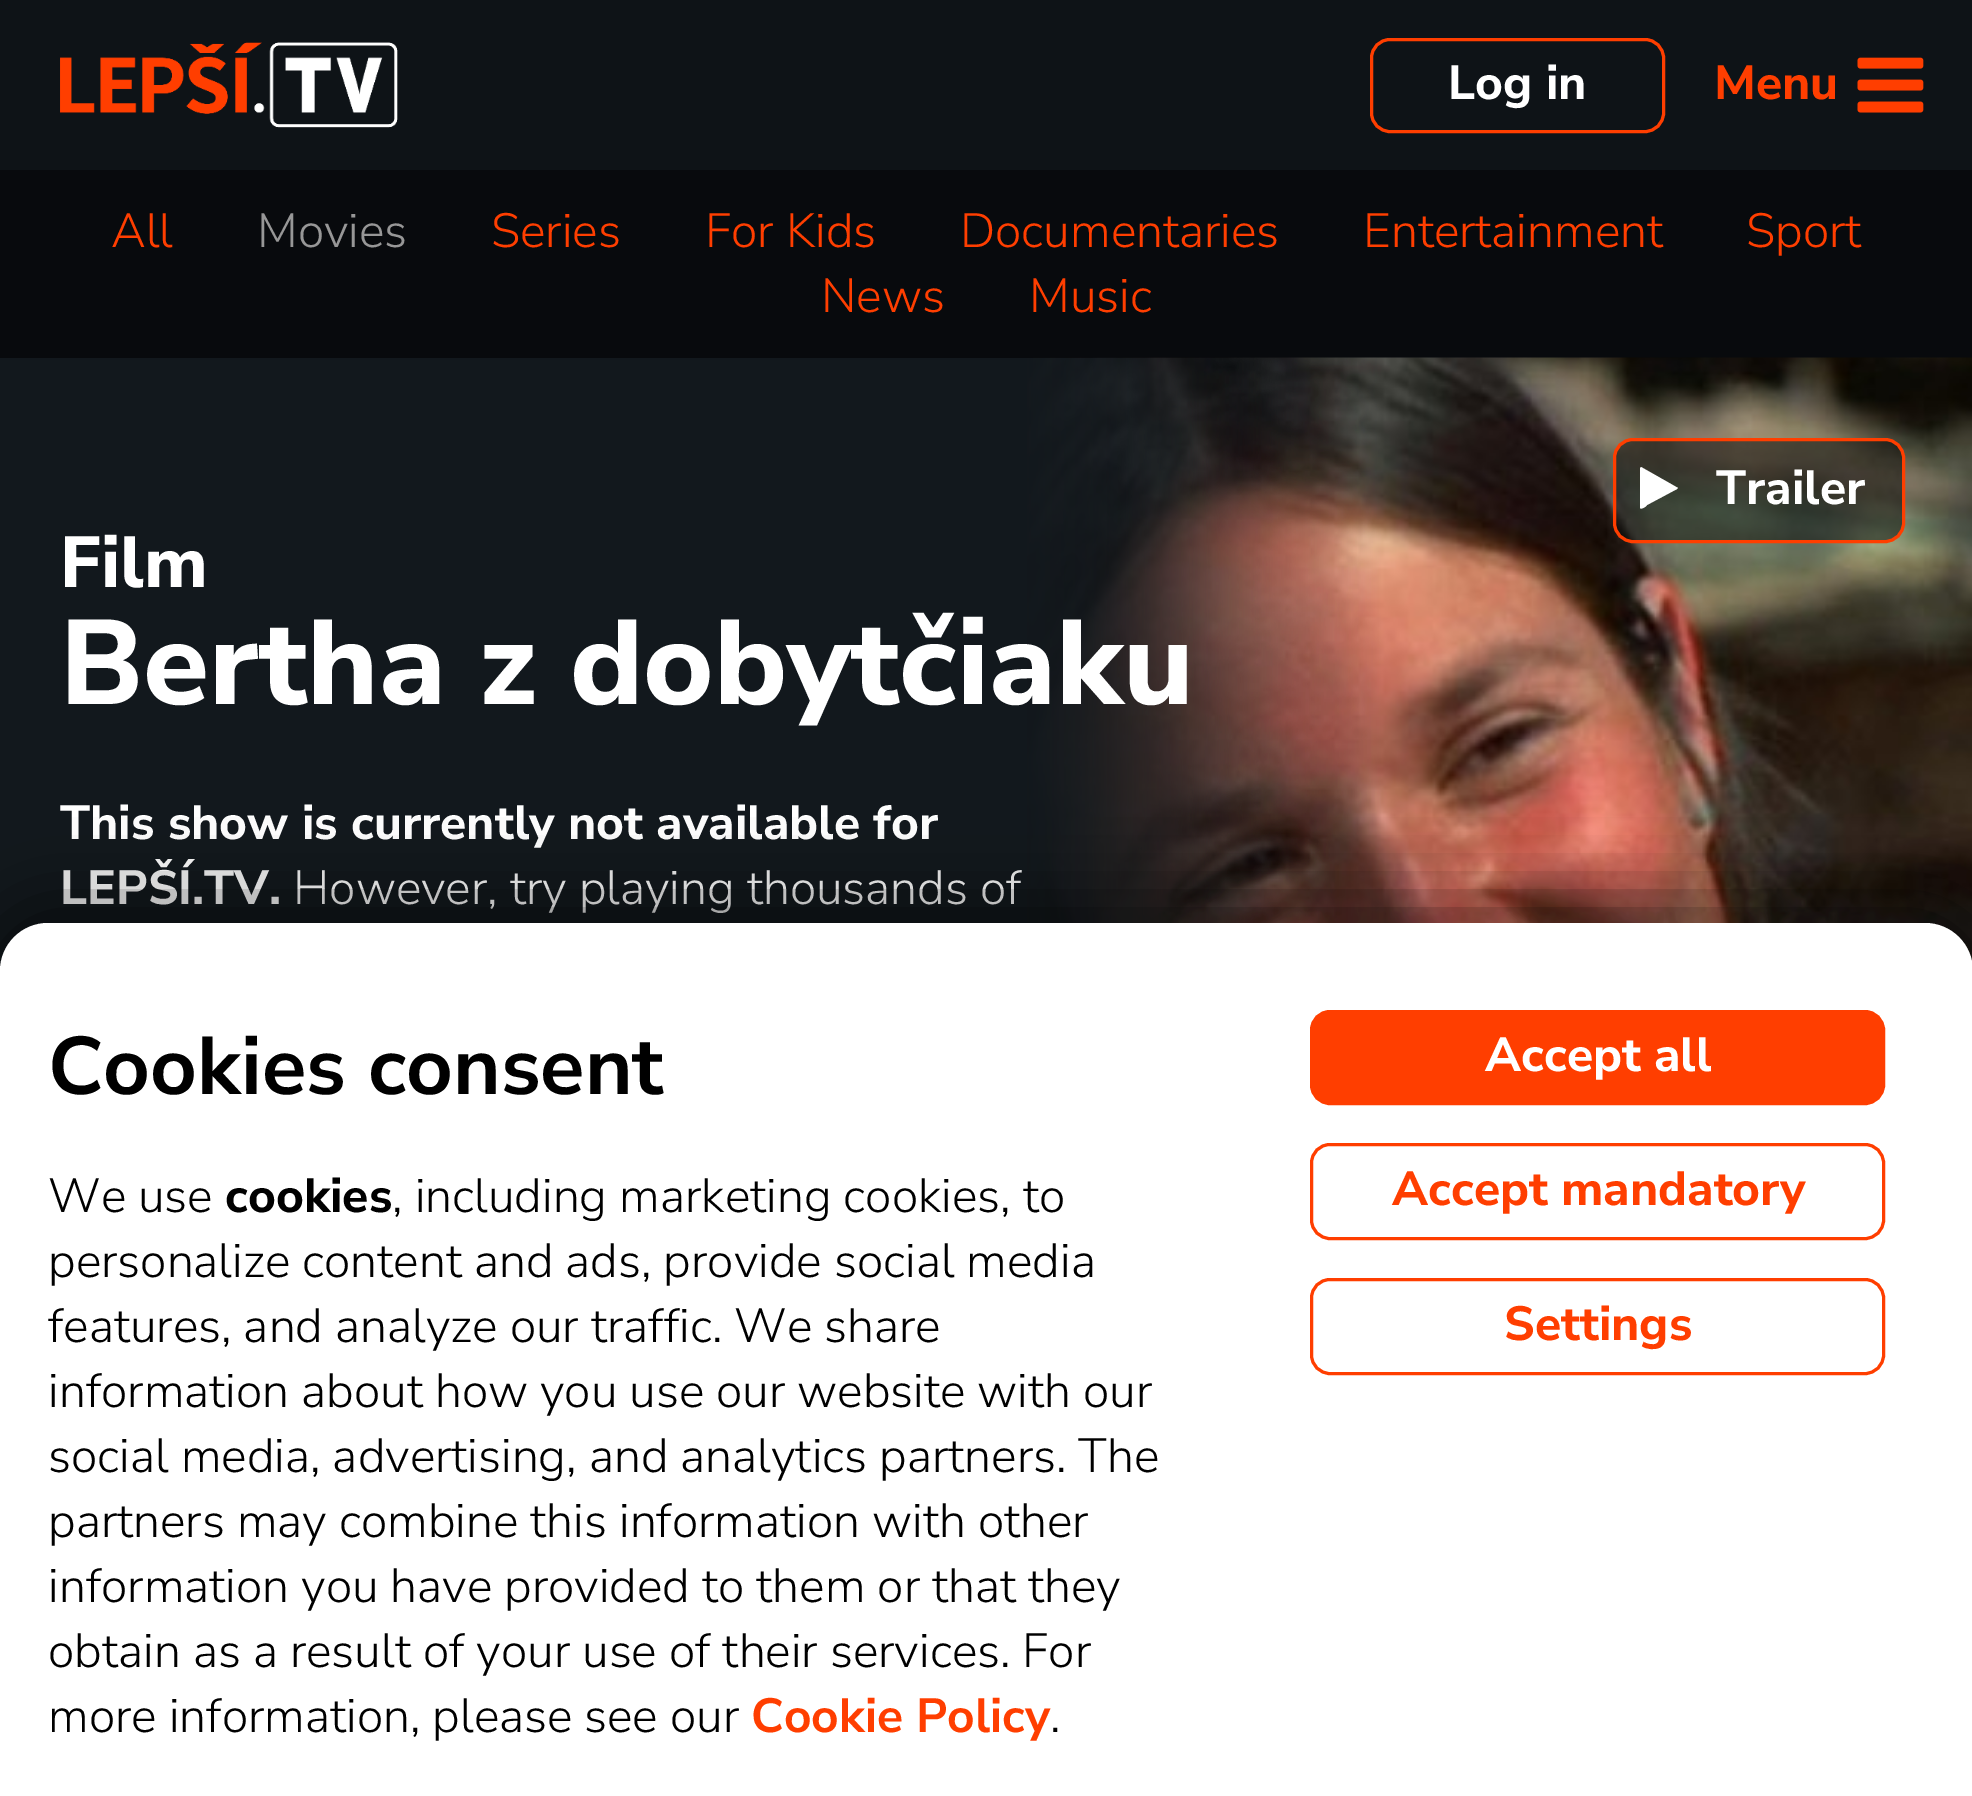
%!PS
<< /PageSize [1972 1796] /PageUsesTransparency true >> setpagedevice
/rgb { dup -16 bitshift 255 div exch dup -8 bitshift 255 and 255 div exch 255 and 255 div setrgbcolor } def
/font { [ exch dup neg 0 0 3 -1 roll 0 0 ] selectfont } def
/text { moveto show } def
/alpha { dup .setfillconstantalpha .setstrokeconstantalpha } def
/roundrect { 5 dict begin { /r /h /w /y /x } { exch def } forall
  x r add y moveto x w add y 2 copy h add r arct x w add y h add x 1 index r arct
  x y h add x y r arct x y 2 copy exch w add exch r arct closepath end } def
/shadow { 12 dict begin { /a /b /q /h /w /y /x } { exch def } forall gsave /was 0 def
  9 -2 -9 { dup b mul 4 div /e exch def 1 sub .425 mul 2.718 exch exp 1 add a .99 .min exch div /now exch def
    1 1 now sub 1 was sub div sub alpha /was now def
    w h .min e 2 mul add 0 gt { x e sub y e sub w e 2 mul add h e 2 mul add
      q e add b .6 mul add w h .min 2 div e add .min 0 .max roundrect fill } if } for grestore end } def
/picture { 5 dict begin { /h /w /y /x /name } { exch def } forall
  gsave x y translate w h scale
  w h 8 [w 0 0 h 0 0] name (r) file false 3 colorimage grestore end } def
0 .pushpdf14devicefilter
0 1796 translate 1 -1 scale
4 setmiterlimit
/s1 { /NunitoSans-Bold 48 font 16#FFFFFF rgb } def
/s2 { /NunitoSans-Bold 48 font 16#FF3E00 rgb } def
/s3 { /NunitoSans-Light 48 font 16#FF3E00 rgb } def
/s4 { /NunitoSans-Light 48 font 16#979797 rgb } def
/s5 { /NunitoSans-ExtraBold 72 font 16#FFFFFF rgb } def
/s6 { /NunitoSans-ExtraBold 120 font 16#FFFFFF rgb } def
/s7 { /NunitoSans-Light 48 font 16#FFFFFF rgb } def
/s8 { /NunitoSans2-Bold 81.5 font 16#000000 rgb } def
/s9 { /NunitoSans-Light 48 font 16#000000 rgb } def
/s10 { /NunitoSans-Bold 48 font 16#000000 rgb } def
/s11 { /NunitoSans2-Bold 48 font 16#FF3E00 rgb } def
16#12181D rgb
0 0 1972 1796 rectfill
16#0E1317 rgb
0 0 1972 170 rectfill
(pic1.raw) 60 42 338 86 picture
16#FF3E00 rgb
3 setlinewidth
1371.5 39.5 292 92 18.5 roundrect stroke
s1
(Log in) 1448 99 text
s2
(Menu) 1714 99 text
(pic2.raw) 1857 57 67 56 picture
16#080A0D rgb
0 170 1972 188 rectfill
s3
(All) 111 247 text
s4
(Movies) 257 247 text
s3
(Series) 491 247 text
(For Kids) 705 247 text
(Documentaries) 960 247 text
(Entertainment) 1363 247 text
(Sport) 1746 247 text
(News) 821 312 text
(Music) 1029 312 text
(pic3.raw) 1027 357 945 605 picture
0.5 alpha
16#000000 rgb
1614.5 439.5 289 102 18.5 roundrect fill
1 alpha
16#FF3E00 rgb
1614.5 439.5 289 102 18.5 roundrect stroke
16#FFFFFF rgb
1677 489 moveto 1647 505 lineto 1647 506 1641 510 1640 508 curveto 1640 468 lineto 1641 467 lineto 1671 484 lineto 1678 488 lineto closepath fill
s1
(Trailer) 1716 504 text
s5
(Film) 60 587 text
s6
(Bertha z dobytčiaku) 60 704 text
s1
(This show is currently not available for) 60 839 text
(LEPŠÍ.TV.) 60 904 text
s7
(However, try playing thousands of) 293 904 text
16#000000 rgb
-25 898 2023 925 73 36 0.5 shadow
16#FFFFFF rgb
48 923 moveto 1925 923 lineto 1951.5 923 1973 944.5 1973 971 curveto 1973 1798 lineto 0 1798 lineto 0 971 lineto 0 944.5 21.5 923 48 923 curveto closepath fill
s8
(Cookies consent) 48 1094 text
s9
(We use) 48 1212 text
s10
(cookies) 225 1212 text
s9
(, including marketing cookies, to) 392 1212 text
(personalize content and ads, provide social media) 48 1277 text
(features, and analyze our traffic. We share) 48 1342 text
(information about how you use our website with our) 48 1407 text
(social media, advertising, and analytics partners. The) 48 1472 text
(partners may combine this information with other) 48 1537 text
(information you have provided to them or that they) 48 1602 text
(obtain as a result of your use of their services. For) 48 1667 text
(more information, please see our) 48 1732 text
s11
(Cookie Policy) 751 1732 text
s9
(.) 1050 1732 text
16#FF3E00 rgb
1311.5 1011.5 572 92 18.5 roundrect gsave fill grestore
stroke
s1
(Accept all) 1485 1071 text
16#FF3E00 rgb
1311.5 1144.5 572 94 18.5 roundrect stroke
(Accept mandatory) 1392 1205 text
1311.5 1279.5 572 94 18.5 roundrect stroke
(Settings) 1504 1340 text
.poppdf14devicefilter showpage
